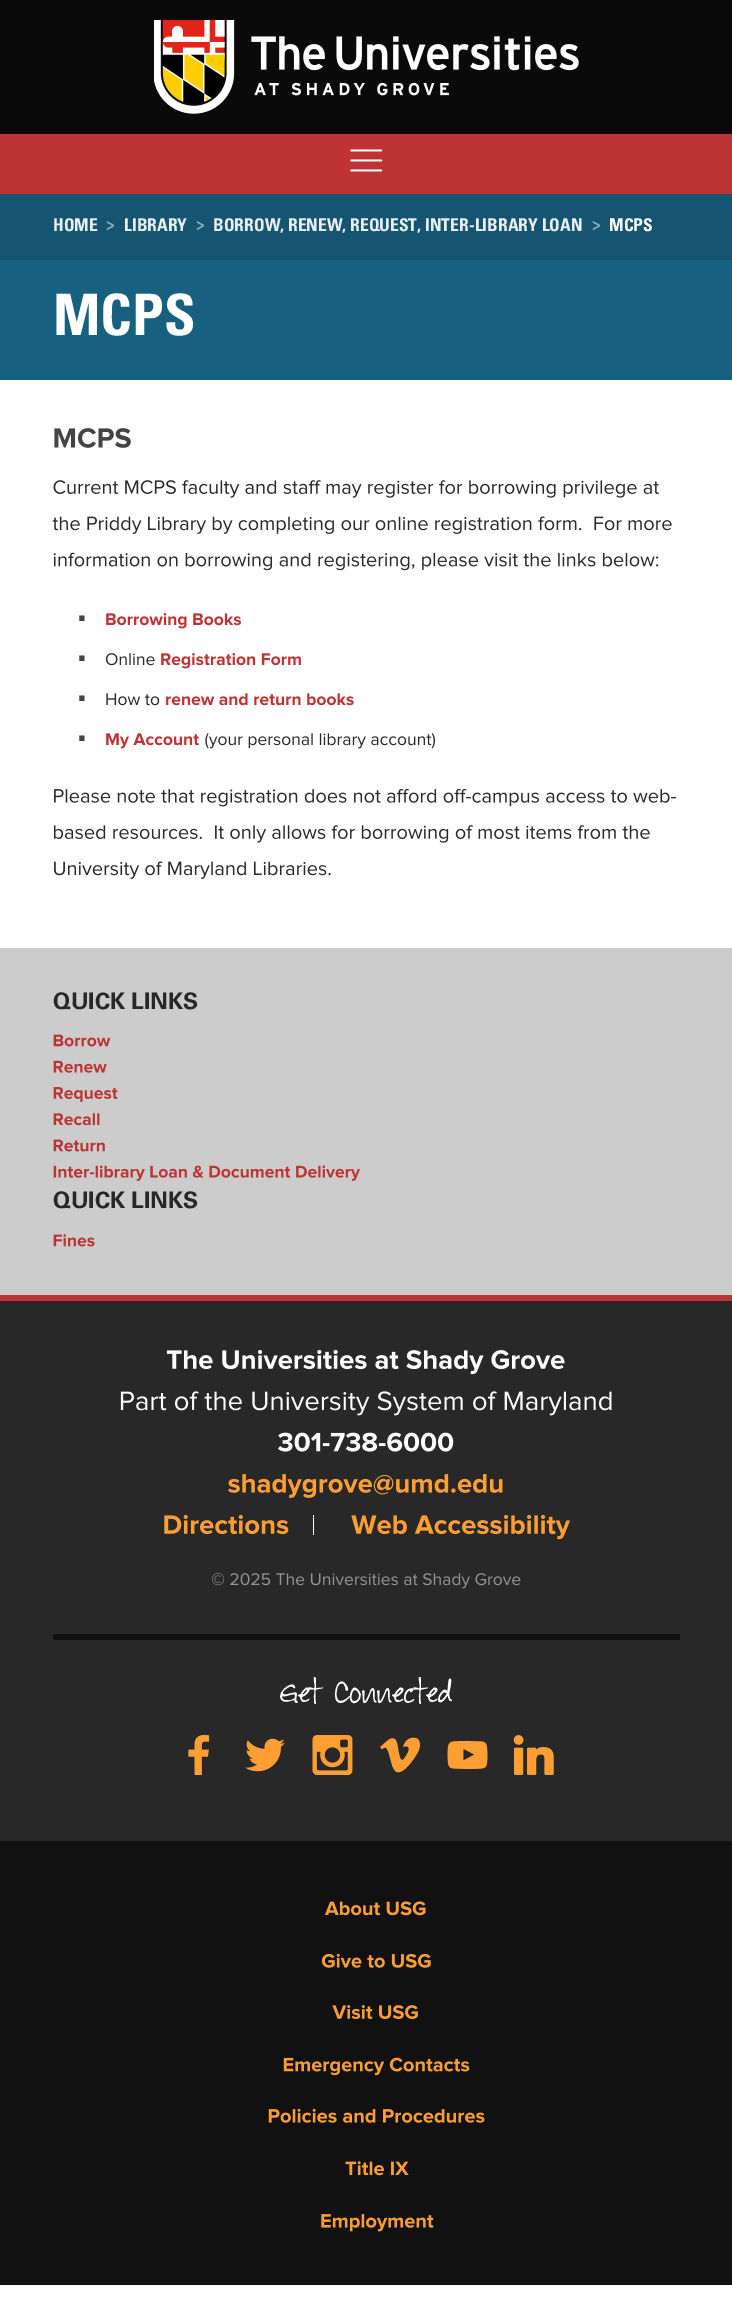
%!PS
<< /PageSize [732 2319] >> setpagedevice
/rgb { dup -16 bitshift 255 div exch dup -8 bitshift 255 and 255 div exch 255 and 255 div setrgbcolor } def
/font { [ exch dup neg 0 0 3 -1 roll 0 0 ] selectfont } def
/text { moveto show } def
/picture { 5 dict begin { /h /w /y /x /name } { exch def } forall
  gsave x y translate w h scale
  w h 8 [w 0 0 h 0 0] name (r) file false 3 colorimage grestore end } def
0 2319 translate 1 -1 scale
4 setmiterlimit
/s1 { /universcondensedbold-Regular 17.5 font 16#E8EEF1 rgb } def
/s2 { /universcondensedbold-Regular 17.5 font 16#8AAAB8 rgb } def
/s3 { /universcondensedbold-Regular 17.5 font 16#FFFFFF rgb } def
/s4 { /universcondensedbold-Regular 57 font 16#FFFFFF rgb } def
/s5 { /LiberationSans-Regular 22 font 16#444444 rgb } def
/s6 { /univers-Regular 22.75 font 16#282828 rgb } def
/s7 { /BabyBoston-Regular 20 font 16#FFFFFF rgb } def
16#FFFFFF rgb
0 0 732 2319 rectfill
16#0A0A0A rgb
0 0 732 134 rectfill
(pic1.raw) 154 20 425 94 picture
16#BE3333 rgb
0 134 732 60 rectfill
(pic2.raw) 350 149 33 23 picture
16#176080 rgb
0 260 732 120 rectfill
16#155571 rgb
0 194 732 66 rectfill
s1
(HOME) 53 231 text
s2
(>) 106 230 text
s1
(LIBRARY) 124 231 text
s2
(>) 196 230 text
s1
(BORROW, RENEW, REQUEST, INTER-LIBRARY LOAN) 213 231 text
s2
(>) 592 230 text
s3
(MCPS) 609 231 text
s4
(MCPS) 53 335 text
(pic3.raw) 54 428 77 20 picture
(pic4.raw) 53 480 606 18 picture
(pic5.raw) 52 516 620 18 picture
(pic6.raw) 53 552 606 19 picture
s5
(▪) 78 625 text
(pic7.raw) 106 613 135 16 picture
(▪) 78 665 text
(pic8.raw) 105 653 50 13 picture
(pic9.raw) 161 653 140 16 picture
(▪) 78 705 text
(pic10.raw) 106 693 54 13 picture
(pic11.raw) 166 693 188 13 picture
(▪) 78 745 text
(pic12.raw) 106 733 93 16 picture
(pic13.raw) 205 733 230 16 picture
(pic14.raw) 54 789 622 18 picture
(pic15.raw) 54 825 596 18 picture
(pic16.raw) 54 861 277 18 picture
16#CCCCCC rgb
0 948 732 347 rectfill
s6
(QUICK LINKS) 53 1009 text
(pic17.raw) 53 1034 58 13 picture
(pic18.raw) 53 1060 54 13 picture
(pic19.raw) 53 1087 65 15 picture
(pic20.raw) 53 1113 47 13 picture
(pic21.raw) 53 1139 52 13 picture
(pic22.raw) 53 1165 307 16 picture
(QUICK LINKS) 53 1208 text
(pic23.raw) 53 1234 42 13 picture
0 1301 732 540 rectfill
16#BE3333 rgb
0 1295 732 6 rectfill
(pic24.raw) 166 1349 399 26 picture
(pic25.raw) 120 1391 492 25 picture
(pic26.raw) 278 1432 176 20 picture
(pic27.raw) 228 1474 275 24 picture
(pic28.raw) 164 1514 125 21 picture
16#FFFFFF rgb
313 1515 1 20 rectfill
(pic29.raw) 351 1514 219 26 picture
(pic30.raw) 212 1573 309 16 picture
16#111111 rgb
53 1634 627 6 rectfill
s7
(Get Connected) 280 1702 text
(pic31.raw) 188 1735 22 40 picture
(pic32.raw) 245 1738 40 34 picture
(pic33.raw) 312 1735 41 40 picture
(pic34.raw) 380 1737 40 36 picture
(pic35.raw) 447 1740 41 30 picture
(pic36.raw) 513 1735 41 40 picture
16#111111 rgb
0 1841 732 444 rectfill
(pic37.raw) 325 1901 101 15 picture
(pic38.raw) 321 1953 110 15 picture
(pic39.raw) 332 2005 86 14 picture
(pic40.raw) 283 2057 187 19 picture
(pic41.raw) 268 2108 217 15 picture
(pic42.raw) 345 2161 64 15 picture
(pic43.raw) 321 2214 113 18 picture
showpage
